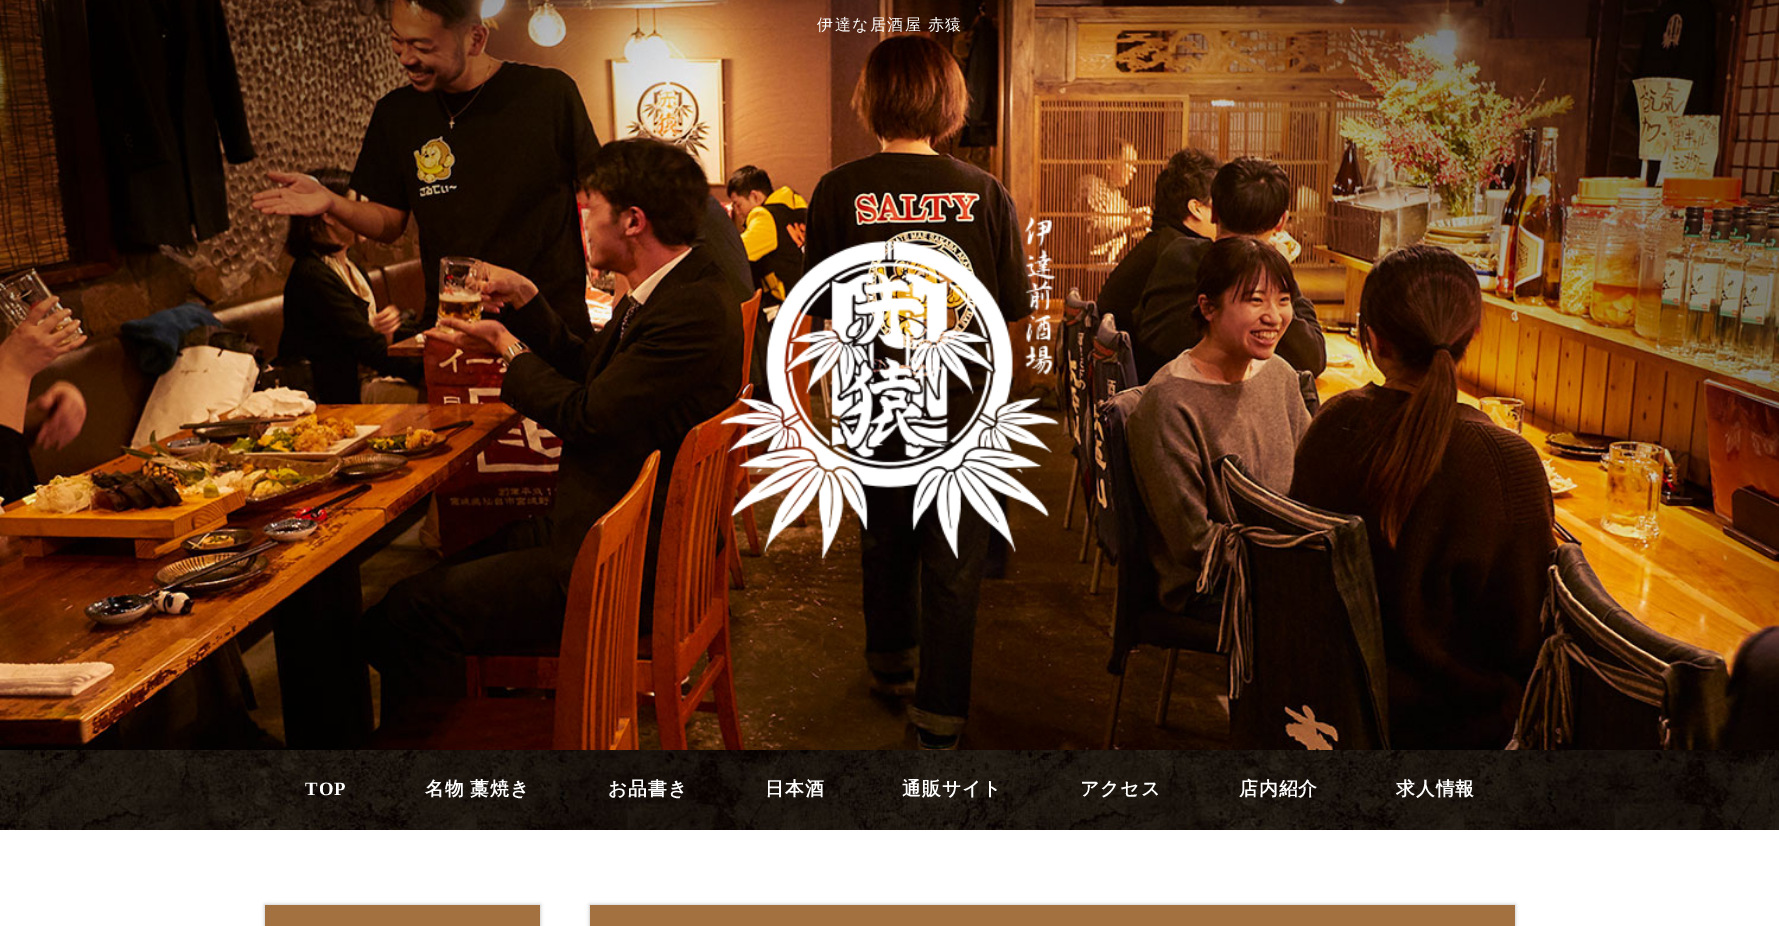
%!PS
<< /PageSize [1779 926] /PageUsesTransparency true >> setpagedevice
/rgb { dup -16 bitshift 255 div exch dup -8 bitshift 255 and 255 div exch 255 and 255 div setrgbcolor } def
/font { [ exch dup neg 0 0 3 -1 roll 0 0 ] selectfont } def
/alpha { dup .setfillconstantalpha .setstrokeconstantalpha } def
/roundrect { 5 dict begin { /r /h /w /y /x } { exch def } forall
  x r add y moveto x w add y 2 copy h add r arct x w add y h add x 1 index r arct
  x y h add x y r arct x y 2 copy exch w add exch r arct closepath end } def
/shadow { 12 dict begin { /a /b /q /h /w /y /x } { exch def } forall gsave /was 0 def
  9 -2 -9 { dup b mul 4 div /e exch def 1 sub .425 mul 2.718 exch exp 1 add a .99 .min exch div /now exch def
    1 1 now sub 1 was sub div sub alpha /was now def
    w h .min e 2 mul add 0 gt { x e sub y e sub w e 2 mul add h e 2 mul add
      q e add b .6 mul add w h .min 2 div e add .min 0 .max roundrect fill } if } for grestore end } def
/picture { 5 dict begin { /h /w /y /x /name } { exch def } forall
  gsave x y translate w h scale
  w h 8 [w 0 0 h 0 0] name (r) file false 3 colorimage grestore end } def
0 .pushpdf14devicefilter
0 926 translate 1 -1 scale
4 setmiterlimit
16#FFFFFF rgb
0 0 1779 926 rectfill
(pic1.raw) 0 0 1779 750 picture
/WenQuanYiZenHei-Medium 16 font
817 30 moveto -1 0 32 1.5 0 (伊達な居酒屋 赤猿) awidthshow
(pic2.raw) 719 217 340 342 picture
(pic3.raw) 0 750 1779 80 picture
/LiberationSerif-Bold 18.75 font
305 795 moveto 1 0 (TOP) ashow
/WenQuanYiZenHei-Bold 18.75 font
425 795 moveto -1 0 32 1 0 (名物 藁焼き) awidthshow
608 795 moveto 1 0 (お品書き) ashow
765 795 moveto 1 0 (日本酒) ashow
902 795 moveto 1 0 (通販サイト) ashow
1080 795 moveto 1 0 (アクセス) ashow
1239 795 moveto 1 0 (店内紹介) ashow
1396 795 moveto 1 0 (求人情報) ashow
16#000000 rgb
265 905 275 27 0 2 0.3 shadow
16#A37140 rgb
265 905 275 21 rectfill
16#000000 rgb
590 905 925 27 0 2 0.3 shadow
16#A37140 rgb
590 905 925 21 rectfill
.poppdf14devicefilter showpage
